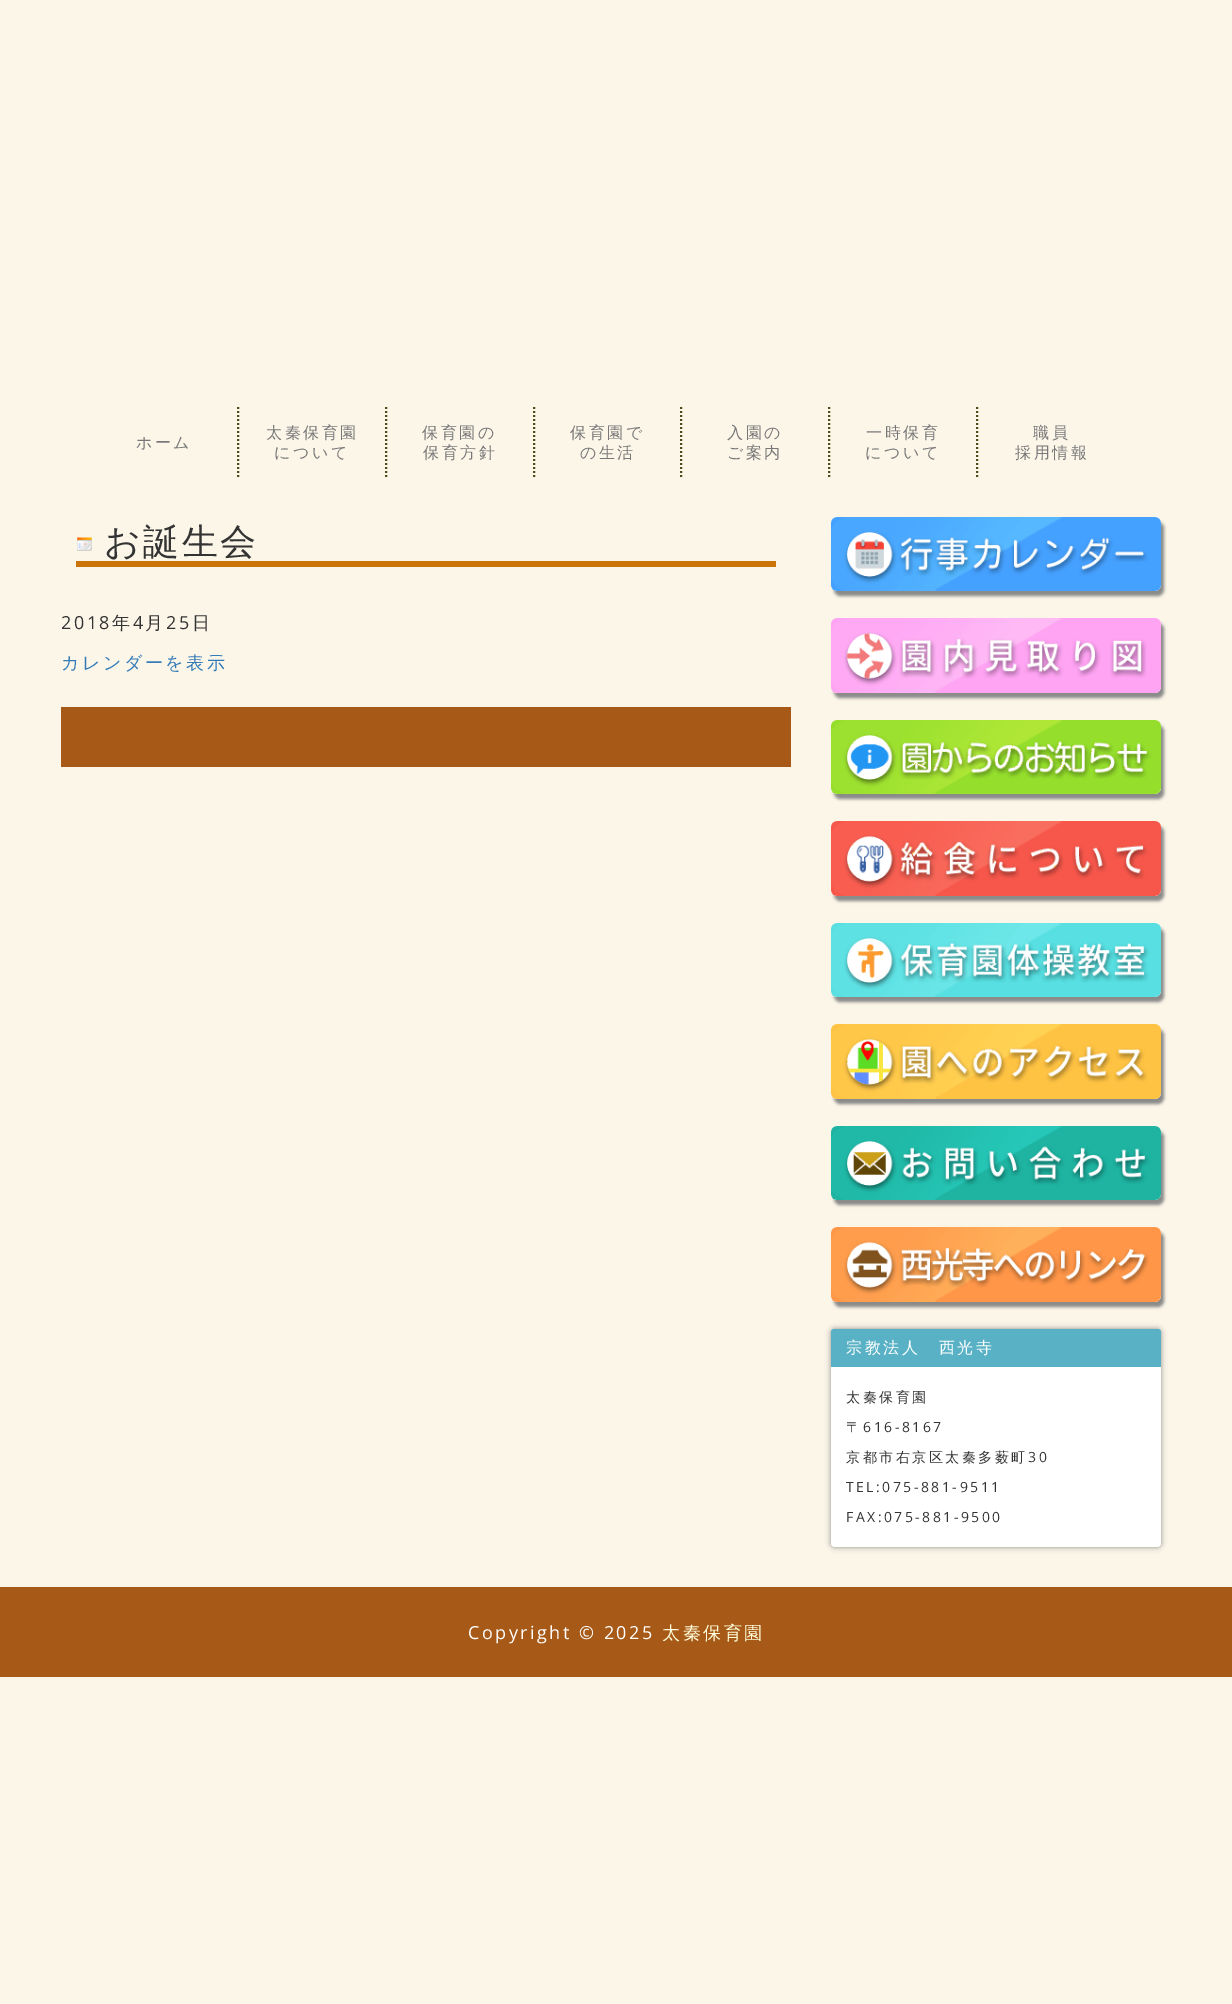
%!PS
<< /PageSize [1232 2004] /PageUsesTransparency true >> setpagedevice
/rgb { dup -16 bitshift 255 div exch dup -8 bitshift 255 and 255 div exch 255 and 255 div setrgbcolor } def
/font { [ exch dup neg 0 0 3 -1 roll 0 0 ] selectfont } def
/alpha { dup .setfillconstantalpha .setstrokeconstantalpha } def
/roundrect { 5 dict begin { /r /h /w /y /x } { exch def } forall
  x r add y moveto x w add y 2 copy h add r arct x w add y h add x 1 index r arct
  x y h add x y r arct x y 2 copy exch w add exch r arct closepath end } def
/shadow { 12 dict begin { /a /b /q /h /w /y /x } { exch def } forall gsave /was 0 def
  9 -2 -9 { dup b mul 4 div /e exch def 1 sub .425 mul 2.718 exch exp 1 add a .99 .min exch div /now exch def
    1 1 now sub 1 was sub div sub alpha /was now def
    w h .min e 2 mul add 0 gt { x e sub y e sub w e 2 mul add h e 2 mul add
      q e add b .6 mul add w h .min 2 div e add .min 0 .max roundrect fill } if } for grestore end } def
/picture { 5 dict begin { /h /w /y /x /name } { exch def } forall
  gsave x y translate w h scale
  w h 8 [w 0 0 h 0 0] name (r) file false 3 colorimage grestore end } def
0 .pushpdf14devicefilter
0 2004 translate 1 -1 scale
4 setmiterlimit
16#FCF6E9 rgb
0 0 1232 2004 rectfill
16#4E4A1B rgb
2 setlinewidth
[2 2] 0 setdash
238 407 moveto 238 477 lineto stroke
/WenQuanYiZenHei-Medium 16 font
16#777777 rgb
136 448 moveto 2.5 0 (ホーム) ashow
16#4E4A1B rgb
386 407 moveto 386 477 lineto stroke
16#777777 rgb
266 438 moveto 2.5 0 (太秦保育園) ashow
274 458 moveto 2.5 0 (について) ashow
16#4E4A1B rgb
534 407 moveto 534 477 lineto stroke
16#777777 rgb
422 438 moveto 2.5 0 (保育園の) ashow
423 458 moveto 2.5 0 (保育方針) ashow
16#4E4A1B rgb
681 407 moveto 681 477 lineto stroke
16#777777 rgb
570 438 moveto 2.5 0 (保育園で) ashow
580 458 moveto 2.5 0 (の生活) ashow
16#4E4A1B rgb
829 407 moveto 829 477 lineto stroke
16#777777 rgb
727 438 moveto 2.5 0 (入園の) ashow
727 458 moveto 2.5 0 (ご案内) ashow
16#4E4A1B rgb
977 407 moveto 977 477 lineto stroke
16#777777 rgb
866 438 moveto 2.5 0 (一時保育) ashow
865 458 moveto 2.5 0 (について) ashow
1033 438 moveto 2.5 0 (職員) ashow
1015 458 moveto 2.5 0 (採用情報) ashow
16#CA740A rgb
76 561 700 6 rectfill
(pic1.raw) 77 537 15 14 picture
/WenQuanYiZenHei-Medium 36 font
16#333333 rgb
104 554 moveto 2.5 0 (お誕生会) ashow
/OpenSans-Regular 18 font
61 629 moveto 2.5 0 (2018) ashow
/WenQuanYiZenHei-Medium 18 font
112 629 moveto 2.5 0 (年) ashow
/OpenSans-Regular 18 font
133 629 moveto 2.5 0 (4) ashow
/WenQuanYiZenHei-Medium 18 font
145 629 moveto 2.5 0 (月) ashow
/OpenSans-Regular 18 font
166 629 moveto 2.5 0 (25) ashow
/WenQuanYiZenHei-Medium 18 font
192 629 moveto 2.5 0 (日) ashow
16#337AB7 rgb
61 669 moveto 2.5 0 (カレンダーを表示) ashow
16#A75A18 rgb
61 707 730 60 rectfill
16#888888 rgb
834 522 330 74 6 1.5 1 shadow
(pic2.raw) 831 517 330 74 picture
16#F7D034 rgb
872 651 2 2 rectfill
16#888888 rgb
834 623 330 75 6 1.5 1 shadow
(pic3.raw) 831 618 330 75 picture
16#F7BA59 rgb
831 763 moveto 831 766 lineto 831 768 833 770 835 770 curveto 1157 770 lineto 1159 770 1161 768 1161 766 curveto 1161 763 lineto 1161 765 1159 767 1157 767 curveto 835 767 lineto 833 767 831 765 831 763 curveto closepath fill
16#F7D034 rgb
852 743 287 24 rectfill
16#888888 rgb
834 725 330 74 6 1.5 1 shadow
(pic4.raw) 831 720 330 74 picture
16#F7BA59 rgb
831 864 moveto 831 867 lineto 831 869 833 871 835 871 curveto 1157 871 lineto 1159 871 1161 869 1161 867 curveto 1161 864 lineto 1161 866 1159 868 1157 868 curveto 835 868 lineto 833 868 831 866 831 864 curveto closepath fill
16#F7D034 rgb
848 844 287 24 rectfill
16#888888 rgb
834 826 330 75 6 1.5 1 shadow
(pic5.raw) 831 821 330 75 picture
16#F7D034 rgb
858 949 23 12 rectfill
16#888888 rgb
834 928 330 74 6 1.5 1 shadow
(pic6.raw) 831 923 330 74 picture
16#F7BA59 rgb
831 1067 moveto 831 1070 lineto 831 1072 833 1074 835 1074 curveto 1157 1074 lineto 1159 1074 1161 1072 1161 1070 curveto 1161 1067 lineto 1161 1069 1159 1071 1157 1071 curveto 835 1071 lineto 833 1071 831 1069 831 1067 curveto closepath fill
16#F7D034 rgb
847 1048 274 23 rectfill
16#888888 rgb
834 1029 330 75 6 1.5 1 shadow
(pic7.raw) 831 1024 330 75 picture
16#F7D034 rgb
858 1152 28 15 rectfill
16#888888 rgb
834 1131 330 74 6 1.5 1 shadow
(pic8.raw) 831 1126 330 74 picture
16#F7BA59 rgb
831 1270 moveto 831 1273 lineto 831 1275 833 1277 835 1277 curveto 1157 1277 lineto 1159 1277 1161 1275 1161 1273 curveto 1161 1270 lineto 1161 1272 1159 1274 1157 1274 curveto 835 1274 lineto 833 1274 831 1272 831 1270 curveto closepath fill
16#F7D034 rgb
849 1250 264 23 rectfill
16#888888 rgb
834 1232 330 75 6 1.5 1 shadow
(pic9.raw) 831 1227 330 75 picture
831 1329 330 218 4 3 1 shadow
16#FFFFFF rgb
831 1329 330 218 4 roundrect fill
16#59B1C5 rgb
834 1329 moveto 1158 1329 lineto 1159.5 1329 1161 1330.5 1161 1332 curveto 1161 1367 lineto 831 1367 lineto 831 1332 lineto 831 1330.5 832.5 1329 834 1329 curveto closepath fill
/WenQuanYiZenHei-Medium 16 font
16#FFFFFF rgb
846 1353 moveto 2.5 0 (宗教法人　西光寺) ashow
/WenQuanYiZenHei-Medium 14 font
16#333333 rgb
846 1402 moveto 2.5 0 (太秦保育園) ashow
846 1432 moveto 2.5 0 (〒) ashow
/OpenSans-Regular 14 font
863 1432 moveto 2.5 0 (616-8167) ashow
/WenQuanYiZenHei-Medium 14 font
846 1462 moveto 2.5 0 (京都市右京区太秦多薮町) ashow
/OpenSans-Regular 14 font
1028 1462 moveto 2.5 0 (30) ashow
846 1492 moveto 2.5 0 (TEL:075-881-9511) ashow
846 1522 moveto 2.5 0 (FAX:075-881-9500) ashow
16#A75A18 rgb
0 1587 1232 90 rectfill
/OpenSans-Regular 18 font
16#FFFFFF rgb
468 1639 moveto 2.5 0 (Copyright © 2025) ashow
/WenQuanYiZenHei-Medium 18 font
16#FFFFDD rgb
662 1639 moveto 2.5 0 (太秦保育園) ashow
.poppdf14devicefilter showpage
